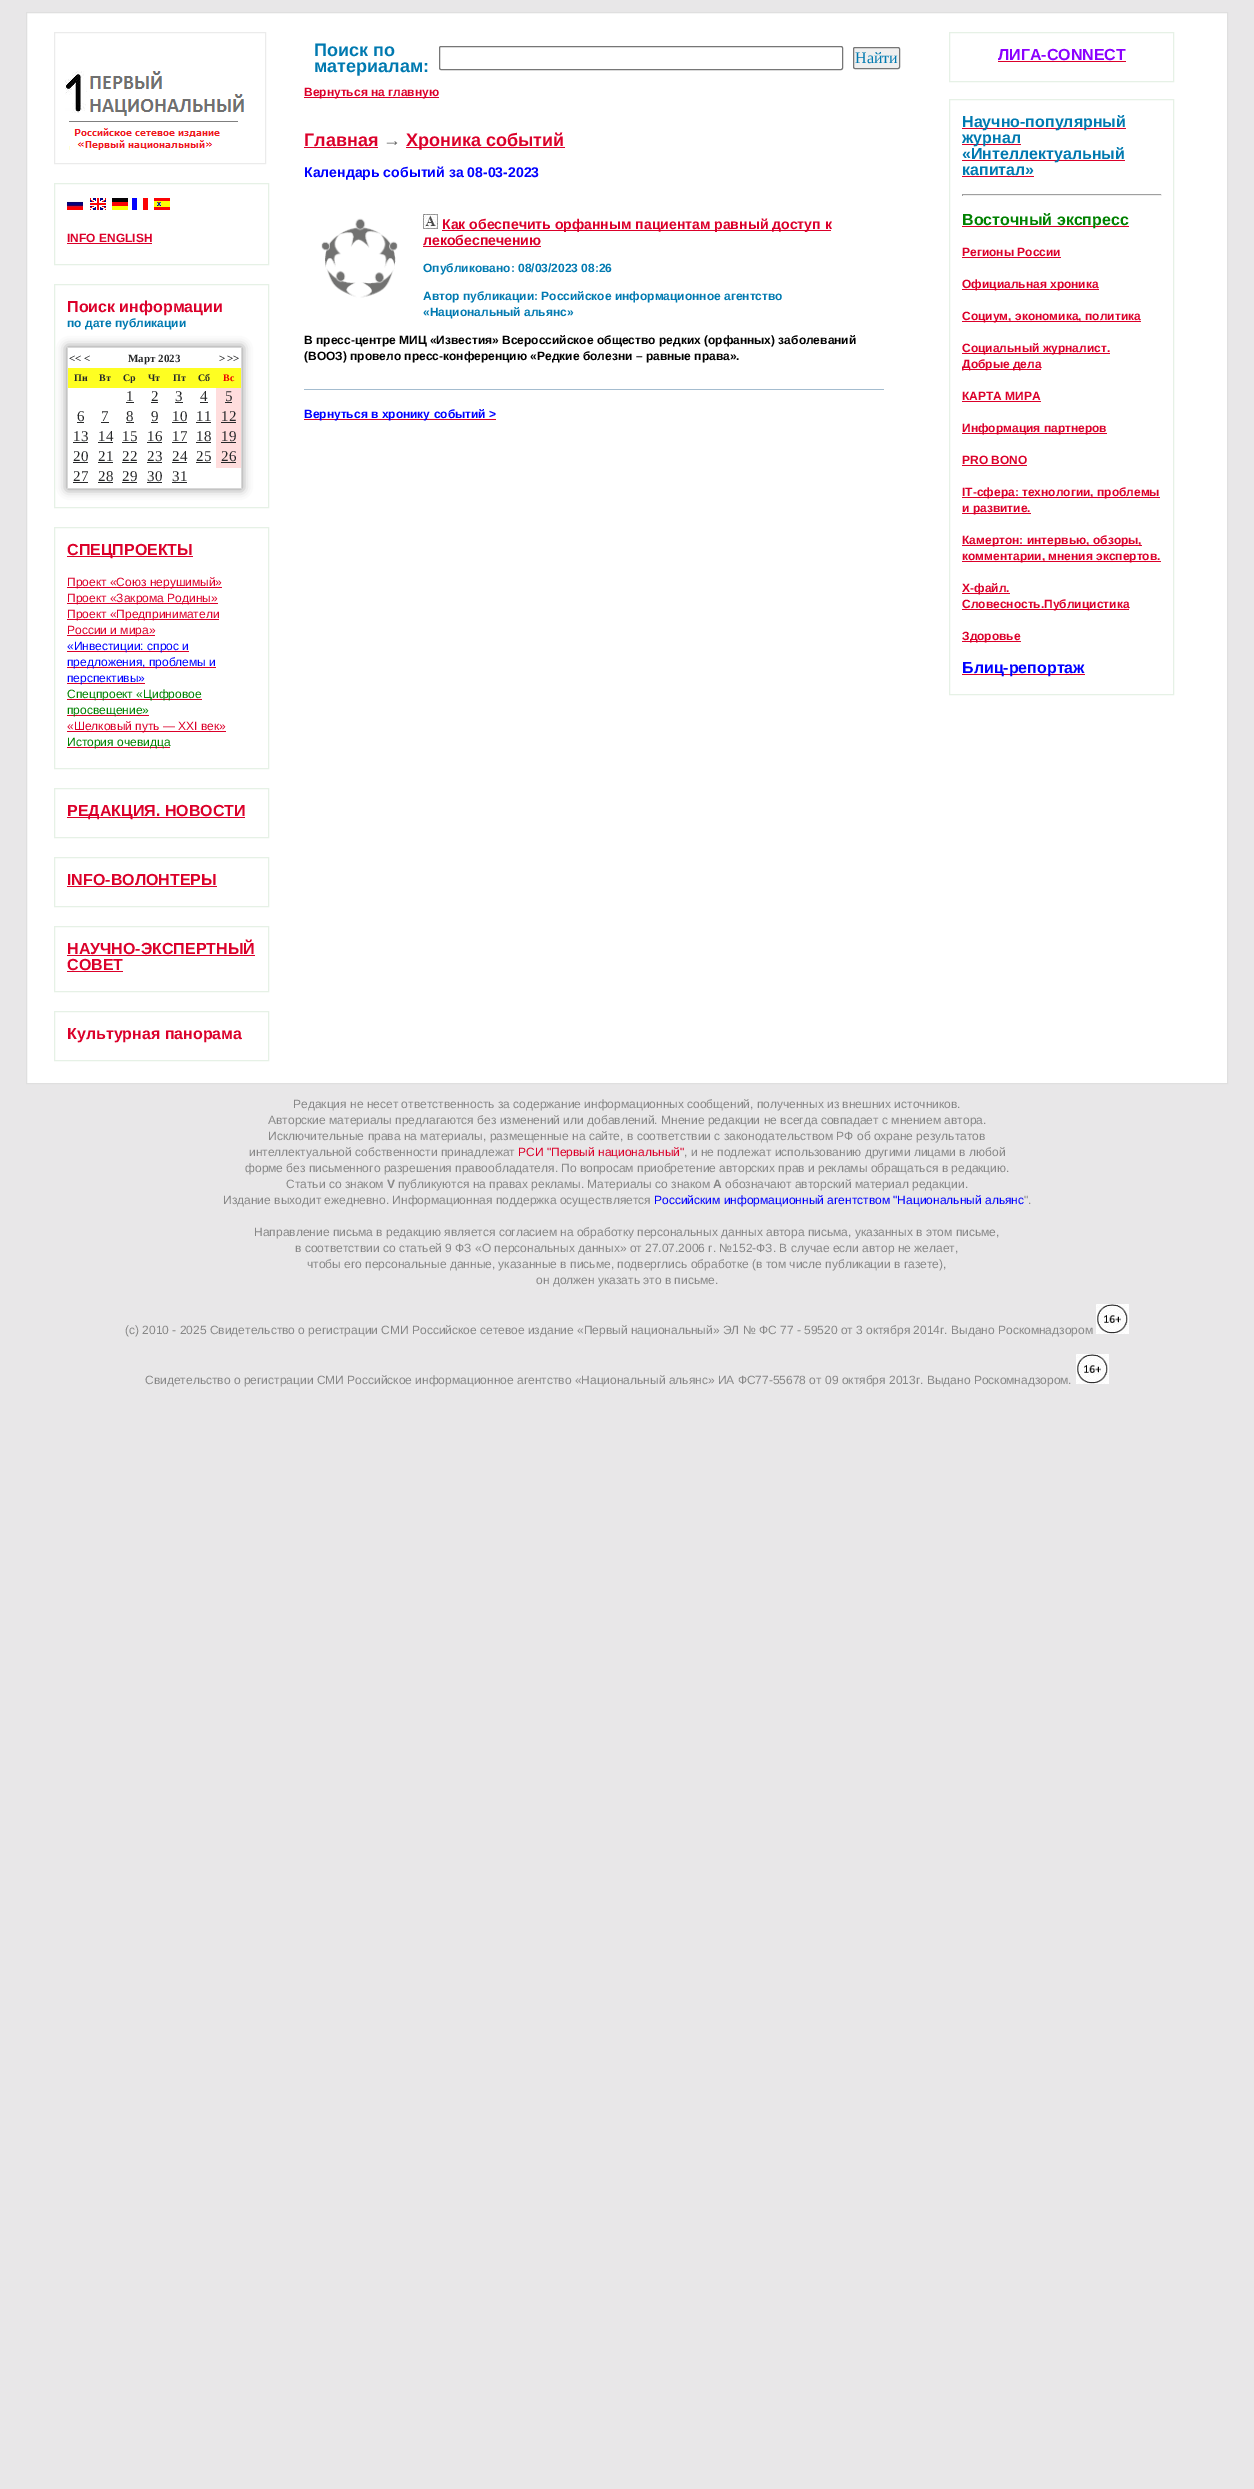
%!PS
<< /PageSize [1254 2489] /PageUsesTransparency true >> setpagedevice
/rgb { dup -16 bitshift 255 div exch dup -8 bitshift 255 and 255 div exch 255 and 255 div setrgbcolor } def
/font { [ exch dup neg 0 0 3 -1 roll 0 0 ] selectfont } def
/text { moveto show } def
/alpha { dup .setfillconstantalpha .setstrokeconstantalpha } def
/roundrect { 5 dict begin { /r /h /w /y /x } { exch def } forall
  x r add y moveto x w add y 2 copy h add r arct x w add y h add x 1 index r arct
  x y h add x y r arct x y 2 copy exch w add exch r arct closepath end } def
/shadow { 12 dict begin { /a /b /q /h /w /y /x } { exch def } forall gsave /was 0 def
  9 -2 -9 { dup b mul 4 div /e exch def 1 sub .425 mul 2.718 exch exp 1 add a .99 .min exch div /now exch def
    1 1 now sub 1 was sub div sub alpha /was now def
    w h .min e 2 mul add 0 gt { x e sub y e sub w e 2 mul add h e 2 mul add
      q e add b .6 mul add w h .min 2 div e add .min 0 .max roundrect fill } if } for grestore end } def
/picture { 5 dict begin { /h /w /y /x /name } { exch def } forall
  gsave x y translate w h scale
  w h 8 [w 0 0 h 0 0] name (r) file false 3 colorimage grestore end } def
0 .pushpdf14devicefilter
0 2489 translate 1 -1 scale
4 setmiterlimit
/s1 { /LiberationSans-Bold 12 font 16#DB002A rgb } def
/s2 { /LiberationSans-Bold 16 font 16#DB002A rgb } def
/s3 { /LiberationSans-Bold 12 font 16#0079B0 rgb } def
/s4 { /LiberationSerif-Bold 11 font 16#272829 rgb } def
/s5 { /LiberationSerif-Bold 10 font 16#272829 rgb } def
/s6 { /LiberationSerif-Bold 10 font 16#EE0000 rgb } def
/s7 { /LiberationSerif-Regular 15 font 16#272829 rgb } def
/s8 { /LiberationSans-Regular 12 font 16#DB002A rgb } def
/s9 { /LiberationSans-Regular 12 font 16#0000FF rgb } def
/s10 { /LiberationSans-Regular 12 font 16#008000 rgb } def
/s11 { /LiberationSans-Bold 18 font 16#0079B0 rgb } def
/s12 { /LiberationSerif-Regular 16 font 16#0079B0 rgb } def
/s13 { /LiberationSans-Bold 18 font 16#DB002A rgb } def
/s14 { /LiberationSans-Bold 18 font 16#666666 rgb } def
/s15 { /LiberationSans-Bold 14.05 font 16#0000FF rgb } def
/s16 { /LiberationSans-Bold 14.05 font 16#DB002A rgb } def
/s17 { /LiberationSans-Bold 12 font 16#000000 rgb } def
/s18 { /LiberationSans-Bold 12 font 16#0000FF rgb } def
/s19 { /LiberationSans-Bold 16 font 16#8B00FF rgb } def
/s20 { /LiberationSans-Bold 16 font 16#0079B0 rgb } def
/s21 { /LiberationSans-Bold 16 font 16#008000 rgb } def
/s22 { /LiberationSans-Bold 16 font 16#0000FF rgb } def
/s23 { /LiberationSans-Regular 12 font 16#878787 rgb } def
/s24 { /LiberationSans-Bold 12 font 16#878787 rgb } def
16#E8E7E8 rgb
0 0 1254 2489 rectfill
16#FFFFFF rgb
26.5 12.5 moveto 1227.5 12.5 lineto 1227.5 1083.5 lineto 26.5 1083.5 lineto closepath gsave fill grestore
16#DFDFDF rgb
stroke
16#EBEBEB rgb
54.5 32.5 211 131 rectstroke
(pic1.raw) 65 71 179 79 picture
16#E6F1E6 rgb
54.5 183.5 214 81 rectstroke
(pic2.raw) 67 201 16 9 picture
(pic3.raw) 90 198 16 12 picture
(pic4.raw) 112 198 16 12 picture
(pic5.raw) 132 198 16 12 picture
(pic6.raw) 154 198 16 12 picture
s1
(INFO ENGLISH) 67 242 text
67 243 85 1 rectfill
16#E6F1E6 rgb
54.5 284.5 214 223 rectstroke
s2
(Поиск информации) 67 312 text
s3
(по дате публикации) 67 327 text
gsave
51 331 moveto 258 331 lineto 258 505 lineto 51 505 lineto closepath 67 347 moveto 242 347 lineto 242 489 lineto 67 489 lineto closepath eoclip newpath
16#888888 rgb
67 347 175 142 0 5 1 shadow
grestore
16#D8D8D8 rgb
67 347 175 1 rectfill
241 347 1 142 rectfill
67 488 175 1 rectfill
67 347 1 142 rectfill
s4
(<<) 69 362 text
(<) 84 362 text
(Март 2023) 128 362 text
(>) 219 362 text
(>>) 227 362 text
16#FEFE22 rgb
68 368 173 20 rectfill
s5
(Пн) 74 381 text
(Вт) 99 381 text
(Ср) 123 381 text
(Чт) 148 381 text
(Пт) 173 381 text
(Сб) 198 381 text
s6
(Вс) 223 381 text
s7
(1) 126 401 text
126 402 8 1 rectfill
(2) 151 401 text
151 402 7 1 rectfill
(3) 175 401 text
175 402 8 1 rectfill
(4) 200 401 text
200 402 8 1 rectfill
16#FFDDDD rgb
216 388 25 80 rectfill
s7
(5) 225 401 text
225 402 7 1 rectfill
(6) 77 421 text
77 422 7 1 rectfill
(7) 101 421 text
101 422 8 1 rectfill
(8) 126 421 text
126 422 8 1 rectfill
(9) 151 421 text
151 422 7 1 rectfill
(10) 172 421 text
172 422 15 1 rectfill
(11) 196 421 text
196 422 15 1 rectfill
(12) 221 421 text
221 422 15 1 rectfill
(13) 73 441 text
73 442 15 1 rectfill
(14) 98 441 text
98 442 15 1 rectfill
(15) 122 441 text
122 442 15 1 rectfill
(16) 147 441 text
147 442 15 1 rectfill
(17) 172 441 text
172 442 15 1 rectfill
(18) 196 441 text
196 442 15 1 rectfill
(19) 221 441 text
221 442 15 1 rectfill
(20) 73 461 text
73 462 15 1 rectfill
(21) 98 461 text
98 462 15 1 rectfill
(22) 122 461 text
122 462 15 1 rectfill
(23) 147 461 text
147 462 15 1 rectfill
(24) 172 461 text
172 462 15 1 rectfill
(25) 196 461 text
196 462 15 1 rectfill
(26) 221 461 text
221 462 15 1 rectfill
(27) 73 481 text
73 482 15 1 rectfill
(28) 98 481 text
98 482 15 1 rectfill
(29) 122 481 text
122 482 15 1 rectfill
(30) 147 481 text
147 482 15 1 rectfill
(31) 172 481 text
172 482 15 1 rectfill
16#E6F1E6 rgb
54.5 527.5 214 241 rectstroke
16#DB002A rgb
67 556 126 1 rectfill
s2
(СПЕЦПРОЕКТЫ) 67 555 text
67 587 155 1 rectfill
s8
(Проект «Союз нерушимый») 67 586 text
67 603 151 1 rectfill
(Проект «Закрома Родины») 67 602 text
67 619 152 1 rectfill
(Проект «Предприниматели) 67 618 text
67 635 88 1 rectfill
(России и мира») 67 634 text
67 651 122 1 rectfill
s9
(«Инвестиции: спрос и) 67 650 text
16#DB002A rgb
67 667 149 1 rectfill
s9
(предложения, проблемы и) 67 666 text
16#DB002A rgb
67 683 78 1 rectfill
s9
(перспективы») 67 682 text
16#DB002A rgb
67 699 135 1 rectfill
s10
(Спецпроект «Цифровое) 67 698 text
16#DB002A rgb
67 715 82 1 rectfill
s10
(просвещение») 67 714 text
16#DB002A rgb
67 731 159 1 rectfill
(«Шелковый путь — XXI век») 67 730 text
67 747 103 1 rectfill
s10
(История очевидца) 67 746 text
16#E6F1E6 rgb
54.5 788.5 214 49 rectstroke
16#DB002A rgb
67 817 178 1 rectfill
s2
(РЕДАКЦИЯ. НОВОСТИ) 67 816 text
16#E6F1E6 rgb
54.5 857.5 214 49 rectstroke
s2
(INFO-ВОЛОНТЕРЫ) 67 885 text
67 886 150 1 rectfill
16#E6F1E6 rgb
54.5 926.5 214 65 rectstroke
s2
(НАУЧНО-ЭКСПЕРТНЫЙ) 67 954 text
67 955 188 1 rectfill
(СОВЕТ) 67 970 text
67 971 56 1 rectfill
16#E6F1E6 rgb
54.5 1011.5 214 49 rectstroke
s2
(Культурная панорама) 67 1039 text
s11
(Поиск по) 314 56 text
(материалам:) 314 72 text
16#767676 rgb
439.5 46.5 403 23 1.5 roundrect stroke
16#EFEFEF rgb
853.5 47.5 46 21 1.5 roundrect gsave fill grestore
16#767676 rgb
stroke
s12
(Найти) 855 63 text
16#DB002A rgb
304 97 135 1 rectfill
s1
(Вернуться на главную) 304 96 text
s13
(Главная) 304 146 text
304 147 74 1 rectfill
s14
(→) 383 146 text
16#DB002A rgb
406 147 159 1 rectfill
(Хроника событий) 406 146 text
s15
(Календарь событий за 08-03-2023) 304 177 text
16#A4BCCF rgb
304 389 580 1 rectfill
(pic7.raw) 321 218 77 80 picture
(pic8.raw) 423 214 15 15 picture
16#DB002A rgb
442 230 389 1 rectfill
(Как обеспечить орфанным пациентам равный доступ к) 442 229 text
(лекобеспечению) 423 245 text
423 246 118 1 rectfill
s3
(Опубликовано: 08/03/2023 08:26) 423 272 text
(Автор публикации: Российское информационное агентство) 423 300 text
(«Национальный альянс») 423 316 text
s17
(В пресс-центре МИЦ «Известия» Всероссийское общество редких \(орфанных\) заболеваний) 304 344 text
(\(ВООЗ\) провело пресс-конференцию «Редкие болезни – равные права».) 304 360 text
16#DB002A rgb
304 419 192 1 rectfill
s18
(Вернуться в хронику событий >) 304 418 text
16#E6F1E6 rgb
949.5 32.5 224 49 rectstroke
s19
(ЛИГА-CONNECT) 998 60 text
16#DB002A rgb
998 61 128 1 rectfill
16#E6F1E6 rgb
949.5 99.5 224 595 rectstroke
16#DB002A rgb
962 128 164 1 rectfill
s20
(Научно-популярный) 962 127 text
16#DB002A rgb
962 144 59 1 rectfill
s20
(журнал) 962 143 text
16#DB002A rgb
962 160 163 1 rectfill
s20
(«Интеллектуальный) 962 159 text
(капитал») 962 175 text
16#DB002A rgb
962 176 72 1 rectfill
16#9F9F9F rgb
962 194 200 1 rectfill
16#EEEEEE rgb
1161 194 1 2 rectfill
962 195 200 1 rectfill
16#9F9F9F rgb
962 194 1 2 rectfill
16#DB002A rgb
962 226 167 1 rectfill
s21
(Восточный экспресс) 962 225 text
s1
(Регионы России) 962 256 text
962 257 99 1 rectfill
962 289 137 1 rectfill
(Официальная хроника) 962 288 text
962 321 179 1 rectfill
(Социум, экономика, политика) 962 320 text
962 353 148 1 rectfill
(Социальный журналист.) 962 352 text
962 369 79 1 rectfill
(Добрые дела) 962 368 text
(КАРТА МИРА) 962 400 text
962 401 79 1 rectfill
962 433 145 1 rectfill
(Информация партнеров) 962 432 text
(PRO BONO) 962 464 text
962 465 65 1 rectfill
962 497 198 1 rectfill
(IT-сфера: технологии, проблемы) 962 496 text
962 513 69 1 rectfill
(и развитие.) 962 512 text
962 545 180 1 rectfill
(Камертон: интервью, обзоры,) 962 544 text
962 561 199 1 rectfill
(комментарии, мнения экспертов.) 962 560 text
962 593 48 1 rectfill
(Х-файл.) 962 592 text
962 609 167 1 rectfill
(Словесность.Публицистика) 962 608 text
962 641 59 1 rectfill
(Здоровье) 962 640 text
962 674 123 1 rectfill
s22
(Блиц-репортаж) 962 673 text
s23
(Редакция не несет ответственность за содержание информационных сообщений, полученных из внешних источников.) 293 1108 text
(Авторские материалы предлагаются без изменений или добавлений. Мнение редакции не всегда совпадает с мнением автора.) 268 1124 text
(Исключительные права на материалы, размещенные на сайте, в соответствии с законодательством РФ об охране результатов) 268 1140 text
(интеллектуальной собственности принадлежат) 249 1156 text
s8
(РСИ "Первый национальный") 518 1156 text
s23
(, и не подлежат использованию другими лицами в любой) 684 1156 text
(форме без письменного разрешения правообладателя. По вопросам приобретение авторских прав и рекламы обращаться в редакцию.) 245 1172 text
(Статьи со знаком) 286 1188 text
s24
(V) 387 1188 text
s23
(публикуются на правах рекламы. Материалы со знаком) 398 1188 text
s24
(А) 713 1188 text
s23
(обозначают авторский материал редакции.) 725 1188 text
(Издание выходит ежедневно. Информационная поддержка осуществляется) 223 1204 text
s9
(Российским информационный агентством "Национальный альянс) 654 1204 text
s23
(".) 1024 1204 text
(Направление письма в редакцию является согласием на обработку персональных данных автора письма, указанных в этом письме,) 254 1236 text
(в соответствии со статьей 9 ФЗ «О персональных данных» от 27.07.2006 г. №152-ФЗ. В случае если автор не желает,) 295 1252 text
(чтобы его персональные данные, указанные в письме, подверглись обработке \(в том числе публикации в газете\),) 307 1268 text
(он должен указать это в письме.) 536 1284 text
(\(c\) 2010 - 2025 Свидетельство о регистрации СМИ Российское сетевое издание «Первый национальный» ЭЛ № ФС 77 - 59520 от 3 октября 2014г. Выдано Роскомнадзором) 125 1334 text
(pic9.raw) 1096 1304 33 30 picture
(Свидетельство о регистрации СМИ Российское информационное агентство «Национальный альянс» ИА ФС77-55678 от 09 октября 2013г. Выдано Роскомнадзором.) 145 1384 text
(pic9.raw) 1076 1354 33 30 picture
.poppdf14devicefilter showpage
